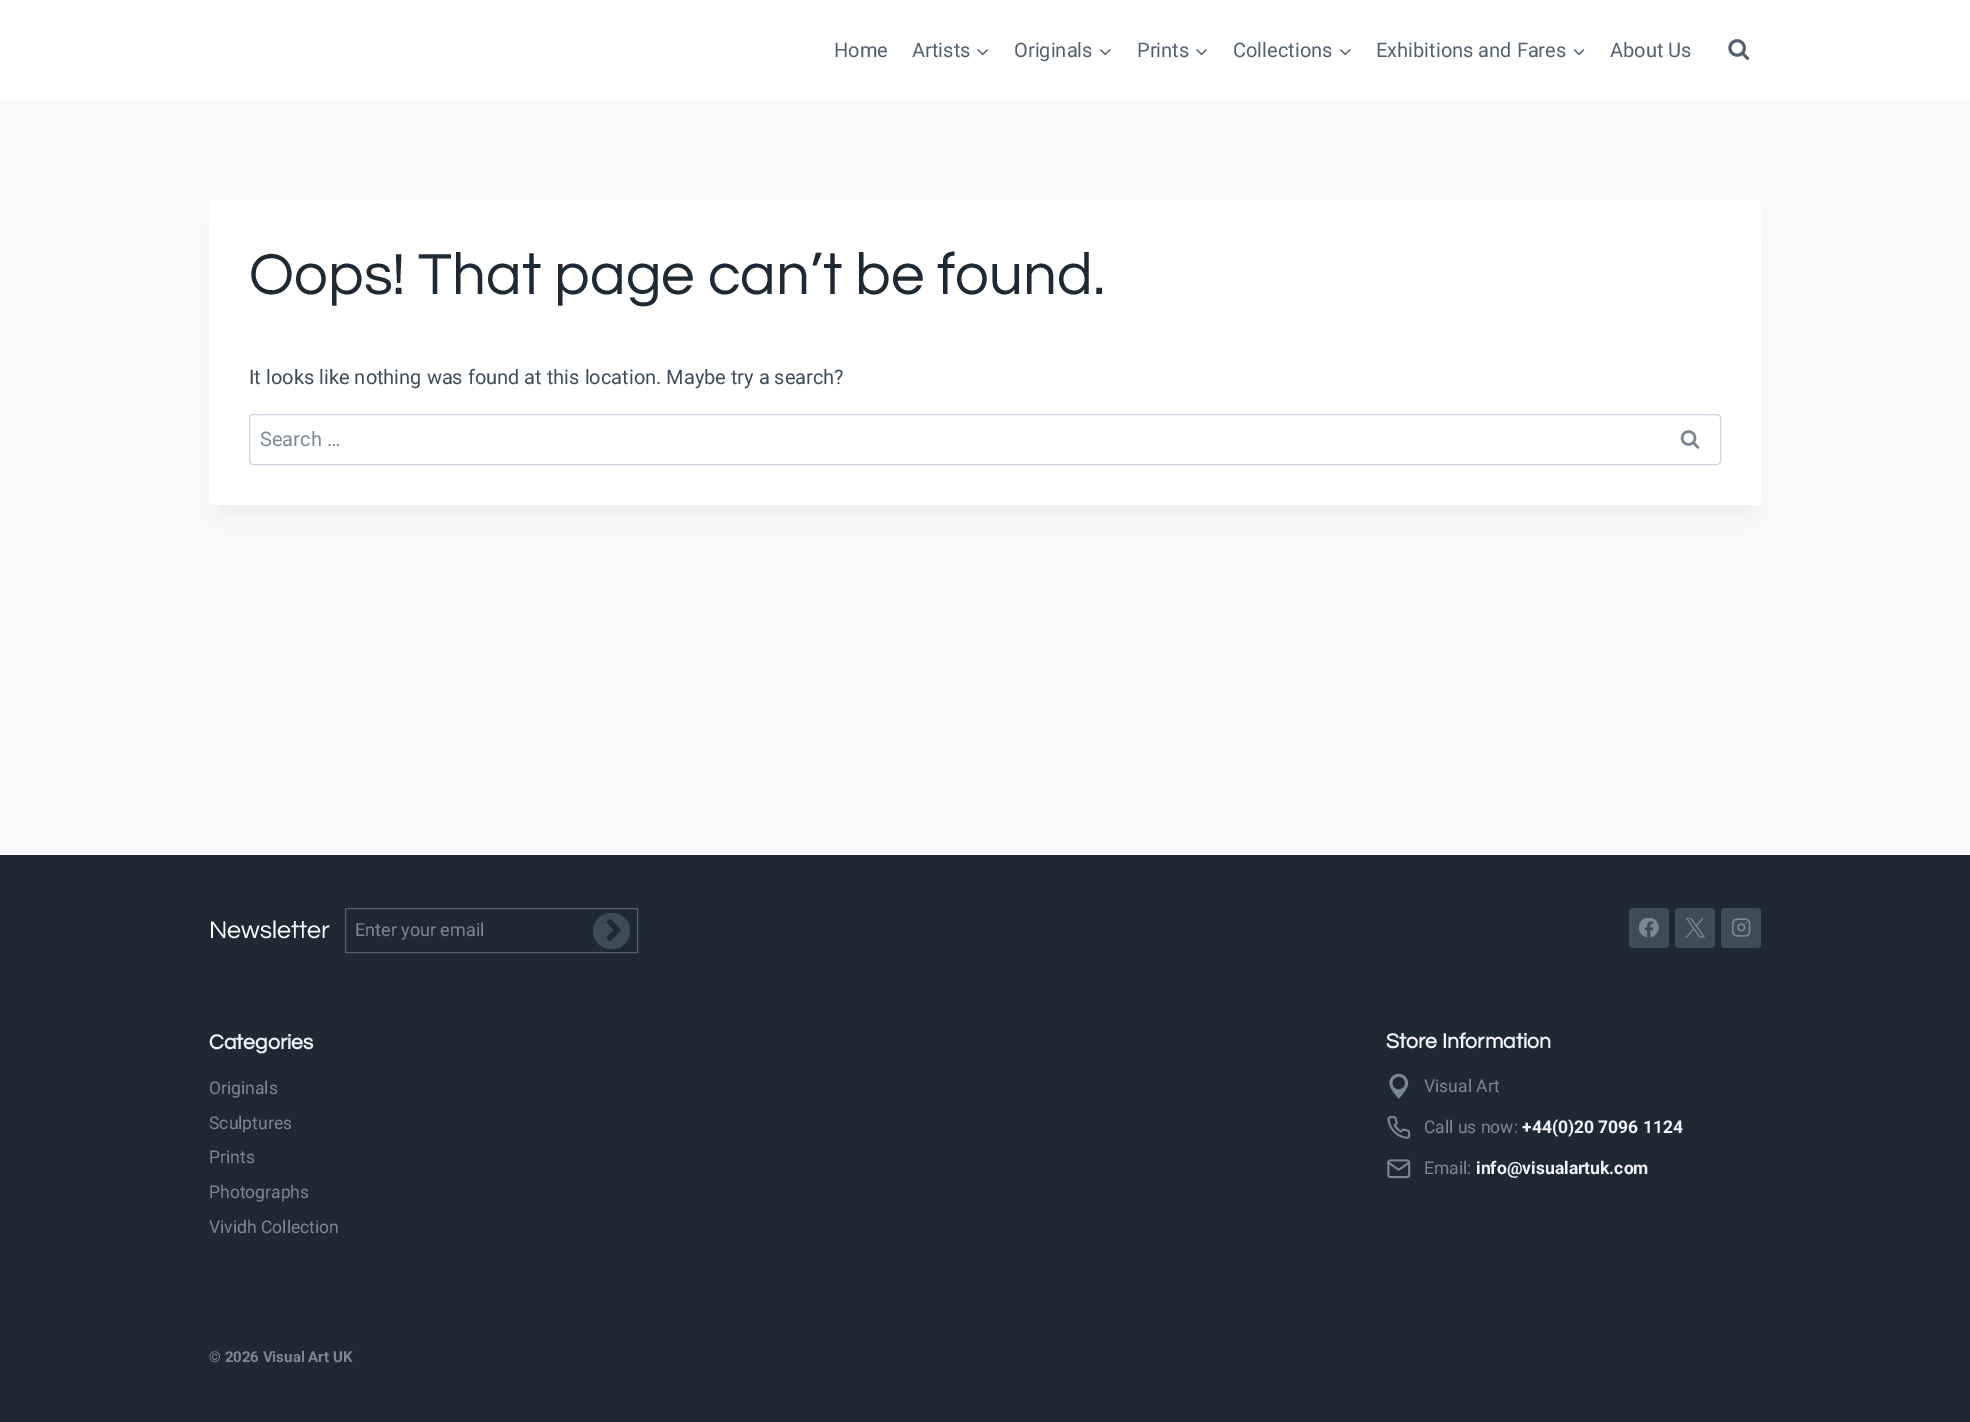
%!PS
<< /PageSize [1970 1422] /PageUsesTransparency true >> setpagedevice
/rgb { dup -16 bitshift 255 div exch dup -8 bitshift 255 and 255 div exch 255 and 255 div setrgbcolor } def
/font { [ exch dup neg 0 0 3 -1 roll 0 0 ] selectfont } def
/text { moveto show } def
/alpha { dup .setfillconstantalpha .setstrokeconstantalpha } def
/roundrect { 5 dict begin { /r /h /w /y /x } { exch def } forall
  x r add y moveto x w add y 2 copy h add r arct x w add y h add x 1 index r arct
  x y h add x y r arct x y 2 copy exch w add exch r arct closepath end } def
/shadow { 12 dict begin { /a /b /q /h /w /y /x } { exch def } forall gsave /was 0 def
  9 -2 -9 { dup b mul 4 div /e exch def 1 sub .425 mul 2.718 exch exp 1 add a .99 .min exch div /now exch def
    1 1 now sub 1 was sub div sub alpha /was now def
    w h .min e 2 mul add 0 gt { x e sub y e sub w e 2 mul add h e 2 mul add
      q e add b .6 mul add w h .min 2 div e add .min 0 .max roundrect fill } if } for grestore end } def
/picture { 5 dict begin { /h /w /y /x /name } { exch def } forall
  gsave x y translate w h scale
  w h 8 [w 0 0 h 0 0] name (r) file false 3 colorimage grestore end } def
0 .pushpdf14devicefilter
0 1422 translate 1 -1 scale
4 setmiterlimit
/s1 { /Roboto-Regular 20 font 16#52606D rgb } def
/s2 { /Questrial-Regular 60 font 16#1F2933 rgb } def
/s3 { /Roboto-Regular 20 font 16#3E4C59 rgb } def
/s4 { /Roboto-Regular 20 font 16#7B8794 rgb } def
/s5 { /Questrial-Regular 25 font 16#FFFFFF rgb } def
/s6 { /Roboto-Regular 18 font 16#7B8794 rgb } def
/s7 { /Questrial-Bold 21.25 font 16#F3F4F7 rgb } def
/s8 { /Roboto-Regular 17.5 font 16#7B8794 rgb } def
/s9 { /Roboto-Bold 17.5 font 16#F3F4F7 rgb } def
/s10 { /Roboto-Bold 15 font 16#7B8794 rgb } def
16#F9F9FB rgb
0 0 1970 1422 rectfill
16#FFFFFF rgb
0 0 1970 100 rectfill
s1
(Home) 834 57 text
(Artists) 912 57 text
(pic1.raw) 977 49 11 7 picture
(Originals) 1014 57 text
(pic2.raw) 1100 49 11 7 picture
(Prints) 1137 57 text
(pic3.raw) 1196 49 11 7 picture
(Collections) 1233 57 text
(pic2.raw) 1340 49 11 7 picture
(Exhibitions and Fares) 1376 57 text
(pic4.raw) 1573 49 12 7 picture
(About Us) 1610 57 text
(pic5.raw) 1728 39 22 21 picture
16#000000 rgb
221 231 1528 280 0 15.5 0.05 shadow
16#FFFFFF rgb
209 200 1552 305 5 roundrect fill
s2
(Oops! That page can’t be found.) 249 294 text
s3
(It looks like nothing was found at this location. Maybe try a search?) 249 384 text
16#CBD5E0 rgb
249.5 414.5 1471 50 3.5 roundrect stroke
s4
(Search …) 260 446 text
(pic6.raw) 1680 430 20 19 picture
16#1F2933 rgb
0 855 1970 567 rectfill
s5
(Newsletter) 209 938 text
16#52606D rgb
345.5 908.5 292 44 rectstroke
s6
(Enter your email) 355 936 text
16#3E4C59 rgb
593 913 37 36 18 roundrect fill
(pic7.raw) 606 919 15 22 picture
1629 908 40 40 4 roundrect fill
(pic8.raw) 1639 918 20 20 picture
1675 908 40 40 4 roundrect fill
(pic9.raw) 1685 918 20 20 picture
1721 908 40 40 4 roundrect fill
(pic10.raw) 1732 918 19 19 picture
s7
(Categories) 209 1049 text
s8
(Originals) 209 1094 text
(Sculptures) 209 1129 text
(Prints) 209 1163 text
(Photographs) 209 1198 text
(Vividh Collection) 209 1233 text
s7
(Store Information) 1386 1048 text
(pic11.raw) 1389 1074 20 25 picture
s8
(Visual Art) 1424 1092 text
(pic12.raw) 1387 1116 24 23 picture
(Call us now:) 1424 1133 text
s9
(+44\(0\)20 7096 1124) 1522 1133 text
(pic13.raw) 1387 1159 24 20 picture
s8
(Email:) 1424 1174 text
s9
(info@visualartuk.com) 1476 1174 text
s10
(© 2026 Visual Art UK) 209 1362 text
.poppdf14devicefilter showpage
